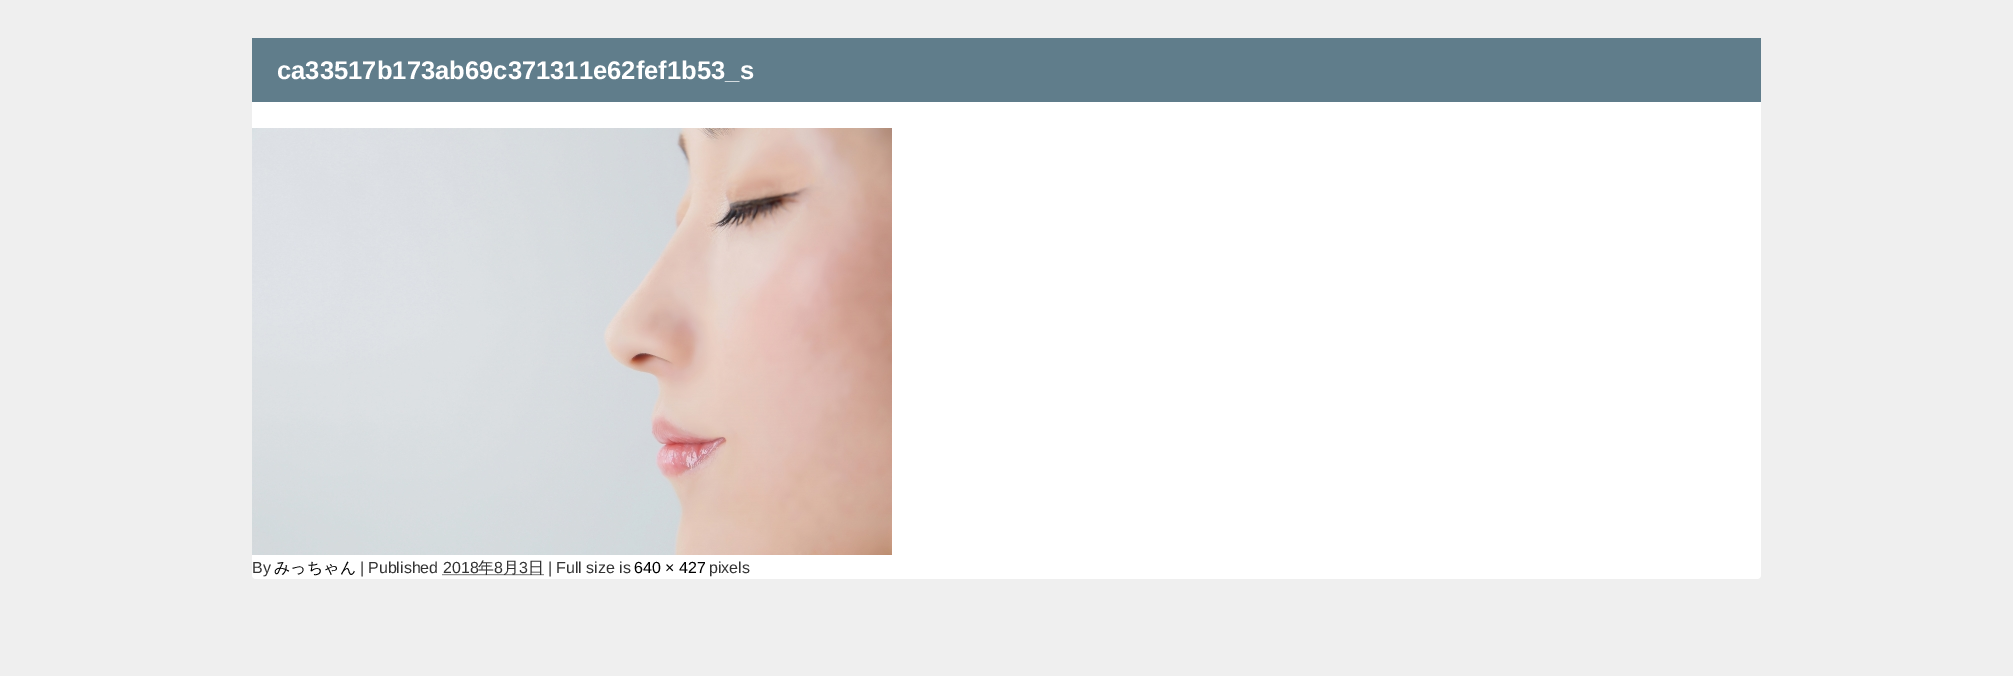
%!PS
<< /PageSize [2013 676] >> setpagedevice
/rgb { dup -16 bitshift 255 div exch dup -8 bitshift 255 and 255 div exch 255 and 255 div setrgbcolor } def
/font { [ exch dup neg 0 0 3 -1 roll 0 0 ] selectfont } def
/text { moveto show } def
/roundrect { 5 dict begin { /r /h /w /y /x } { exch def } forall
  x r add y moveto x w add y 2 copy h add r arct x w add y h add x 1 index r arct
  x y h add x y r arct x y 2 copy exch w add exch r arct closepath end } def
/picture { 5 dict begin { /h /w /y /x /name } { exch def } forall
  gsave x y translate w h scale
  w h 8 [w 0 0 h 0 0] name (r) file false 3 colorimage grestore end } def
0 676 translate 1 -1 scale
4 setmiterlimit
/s1 { /LiberationSans-Bold 25.6 font 16#FFFFFF rgb } def
/s2 { /LiberationSans-Regular 16 font 16#333333 rgb } def
/s3 { /WenQuanYiZenHei-Medium 16 font 16#000000 rgb } def
/s4 { /WenQuanYiZenHei-Medium 16 font 16#333333 rgb } def
/s5 { /LiberationSans-Regular 16 font 16#000000 rgb } def
16#EFEFEF rgb
0 0 2013 676 rectfill
16#FFFFFF rgb
252 38 1509 541 4 roundrect fill
16#607D8B rgb
252 38 1509 64 rectfill
s1
(ca33517b173ab69c371311e62fef1b53_s) 277 79 text
(pic1.raw) 252 128 640 427 picture
s2
(By) 252 573 text
s3
(みっちゃん) 274 573 text
s2
(|) 360 573 text
(Published) 368 573 text
(2018) 443 573 text
[1 1] 0 setdash
442.5 574.5 moveto 544 574.5 lineto stroke
s4
(年) 478 573 text
s2
(8) 494 573 text
s4
(月) 503 573 text
s2
(3) 519 573 text
s4
(日) 528 573 text
s2
(|) 548 573 text
(Full size is) 556 573 text
s5
(640 × 427) 634 573 text
s2
(pixels) 709 573 text
showpage
